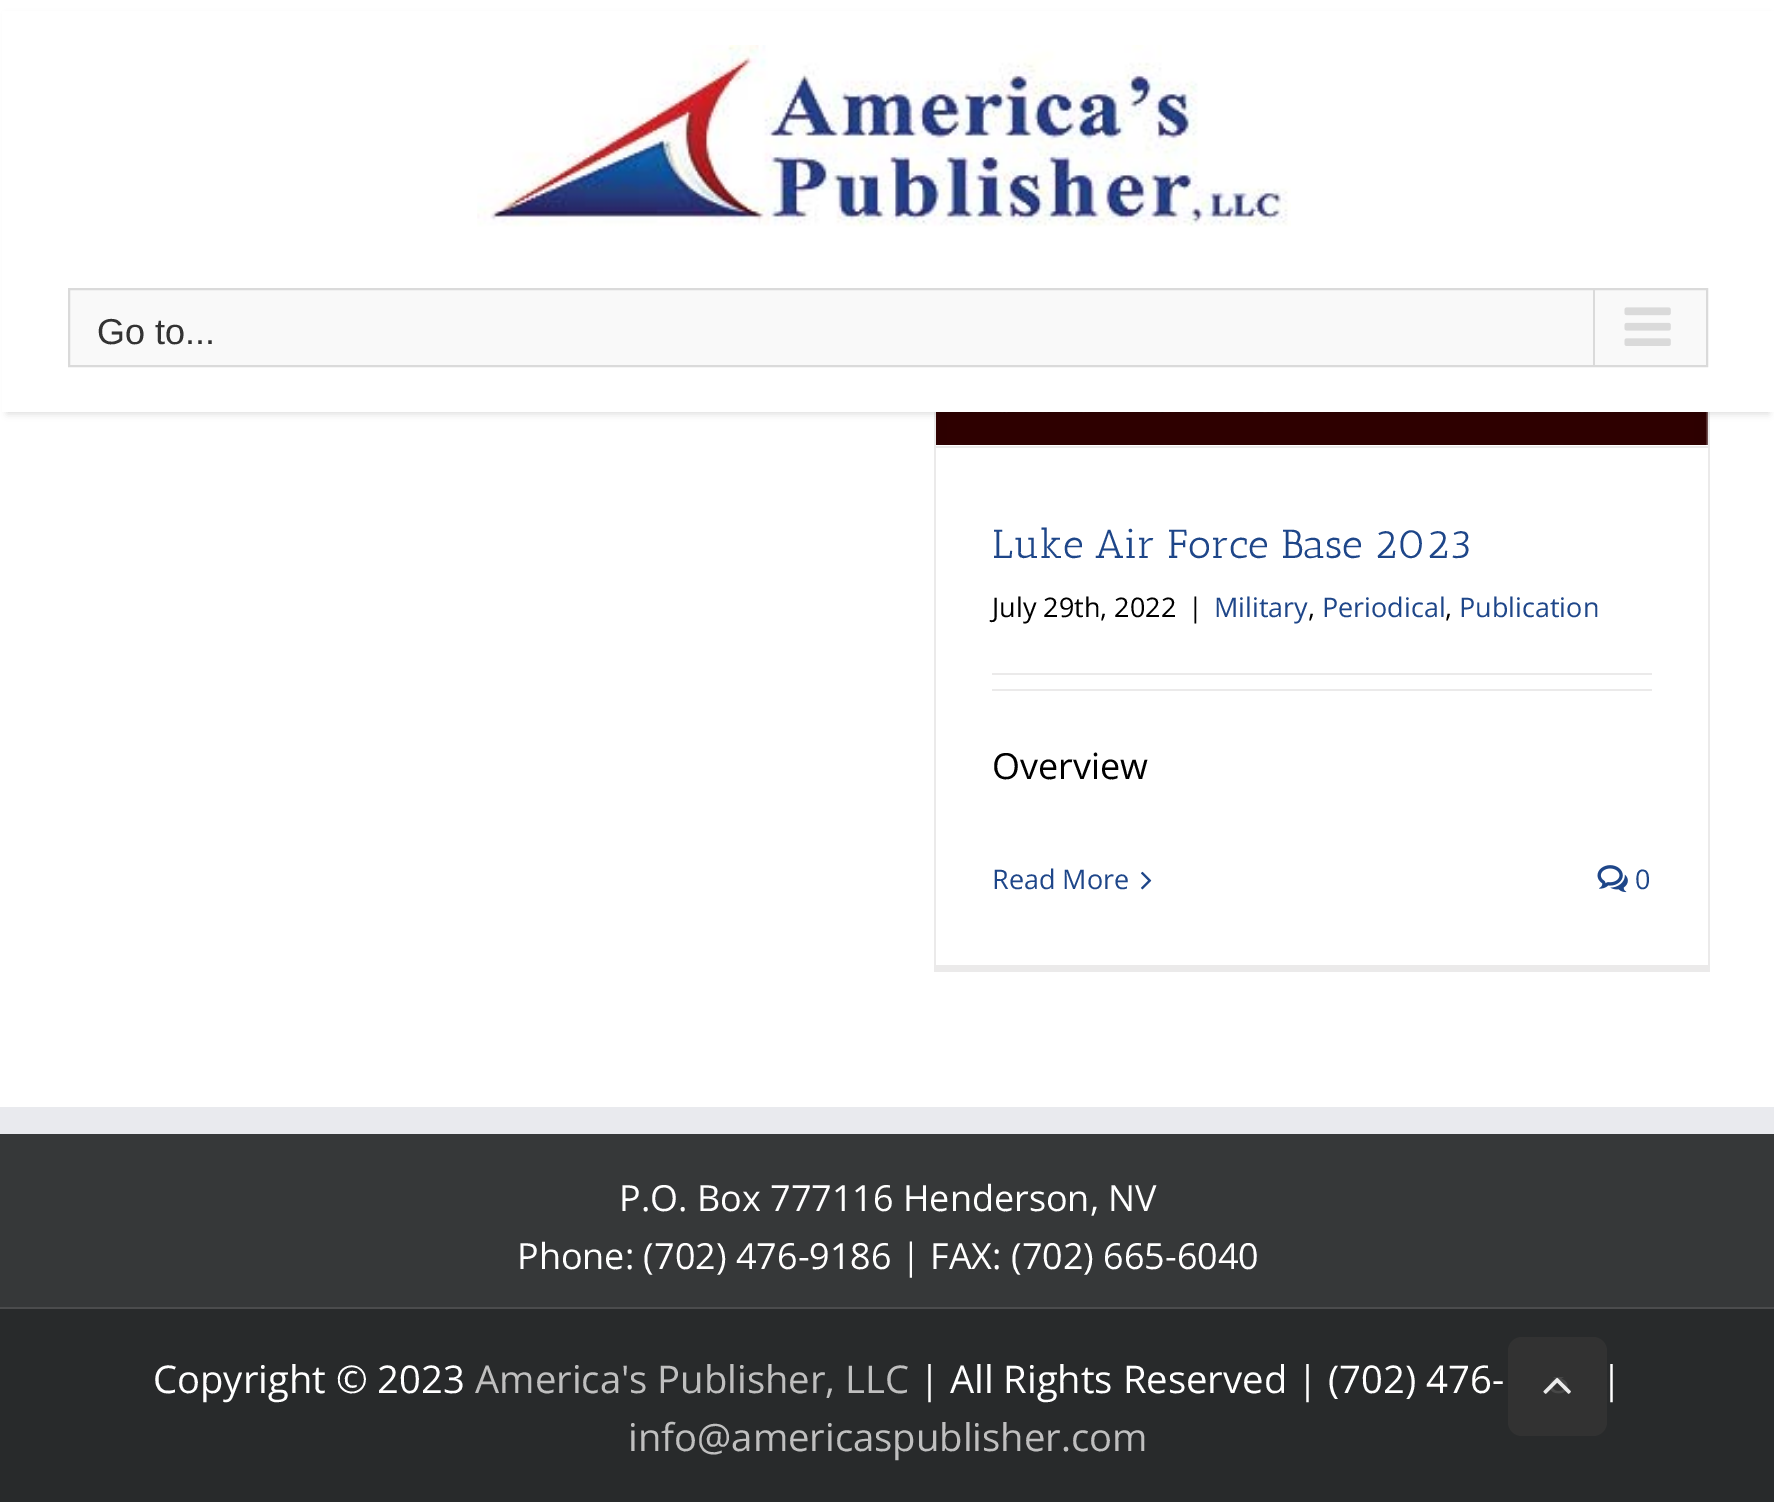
%!PS
<< /PageSize [1774 1502] /PageUsesTransparency true >> setpagedevice
/rgb { dup -16 bitshift 255 div exch dup -8 bitshift 255 and 255 div exch 255 and 255 div setrgbcolor } def
/font { [ exch dup neg 0 0 3 -1 roll 0 0 ] selectfont } def
/text { moveto show } def
/alpha { dup .setfillconstantalpha .setstrokeconstantalpha } def
/roundrect { 5 dict begin { /r /h /w /y /x } { exch def } forall
  x r add y moveto x w add y 2 copy h add r arct x w add y h add x 1 index r arct
  x y h add x y r arct x y 2 copy exch w add exch r arct closepath end } def
/shadow { 12 dict begin { /a /b /q /h /w /y /x } { exch def } forall gsave /was 0 def
  9 -2 -9 { dup b mul 4 div /e exch def 1 sub .425 mul 2.718 exch exp 1 add a .99 .min exch div /now exch def
    1 1 now sub 1 was sub div sub alpha /was now def
    w h .min e 2 mul add 0 gt { x e sub y e sub w e 2 mul add h e 2 mul add
      q e add b .6 mul add w h .min 2 div e add .min 0 .max roundrect fill } if } for grestore end } def
/picture { 5 dict begin { /h /w /y /x /name } { exch def } forall
  gsave x y translate w h scale
  w h 8 [w 0 0 h 0 0] name (r) file false 3 colorimage grestore end } def
0 .pushpdf14devicefilter
0 1502 translate 1 -1 scale
4 setmiterlimit
/s1 { /LiberationSans-Regular 36 font 16#333333 rgb } def
/s2 { /AnticSlab-Regular 40.5 font 16#1E4689 rgb } def
/s3 { /OpenSans-Regular 27 font 16#000000 rgb } def
/s4 { /OpenSans-Regular 27 font 16#1E4689 rgb } def
/s5 { /OpenSans-Regular 36 font 16#000000 rgb } def
/s6 { /OpenSans-Regular 36 font 16#FFFFFF rgb } def
/s7 { /OpenSans-Regular 38.25 font 16#FFFFFF rgb } def
/s8 { /OpenSans-Regular 38.25 font 16#BFBFBF rgb } def
16#FFFFFF rgb
0 0 1774 1502 rectfill
16#EBEAEA rgb
1708 412 2 560 rectfill
934 965 776 7 rectfill
934 412 2 560 rectfill
(pic3.raw) 936 412 772 33 picture
16#000000 rgb
7 16 1762 398 0 3.5 0.12 shadow
16#FFFFFF rgb
2 11 1772 401 rectfill
(pic1.raw) 477 45 814 182 picture
16#F9F9F9 rgb
69 289 moveto 1707 289 lineto 1707 366 lineto 69 366 lineto closepath gsave fill grestore
16#DADADA rgb
2 setlinewidth
stroke
s1
(Go to...) 97 344 text
16#DADADA rgb
1593 290 2 75 rectfill
(pic2.raw) 1624 307 47 39 picture
16#EBEAEA rgb
936 446 772 2 rectfill
s2
(Luke Air Force Base 2023) 992 558 text
s3
(July 29th, 2022) 992 617 text
(|) 1188 617 text
s4
(Military) 1214 617 text
s3
(,) 1308 617 text
s4
(Periodical) 1322 617 text
s3
(,) 1445 617 text
s4
(Publication) 1459 617 text
16#EBEAEA rgb
992 673 660 2 rectfill
992 689 660 2 rectfill
s5
(Overview) 992 779 text
s4
(Read More) 992 889 text
(pic4.raw) 1141 871 11 19 picture
(pic5.raw) 1597 865 31 28 picture
(0) 1635 889 text
16#363839 rgb
0 1134 1774 173 rectfill
16#E9EAEE rgb
0 1107 1774 27 rectfill
s6
(P.O. Box 777116 Henderson, NV) 619 1211 text
(Phone: \(702\) 476-9186 | FAX: \(702\) 665-6040) 517 1269 text
16#282A2B rgb
0 1309 1774 193 rectfill
16#4B4C4D rgb
0 1307 1774 2 rectfill
s7
(Copyright © 2023) 153 1393 text
s8
(America's Publisher, LLC) 475 1393 text
s7
(| All Rights Reserved | \(702\) 476-) 919 1393 text
(|) 1601 1393 text
s8
(info@americaspublisher.com) 628 1451 text
0.9 alpha
16#333333 rgb
1508 1337 99 99 14 roundrect fill
1 alpha
(pic6.raw) 1543 1377 28 17 picture
.poppdf14devicefilter showpage
